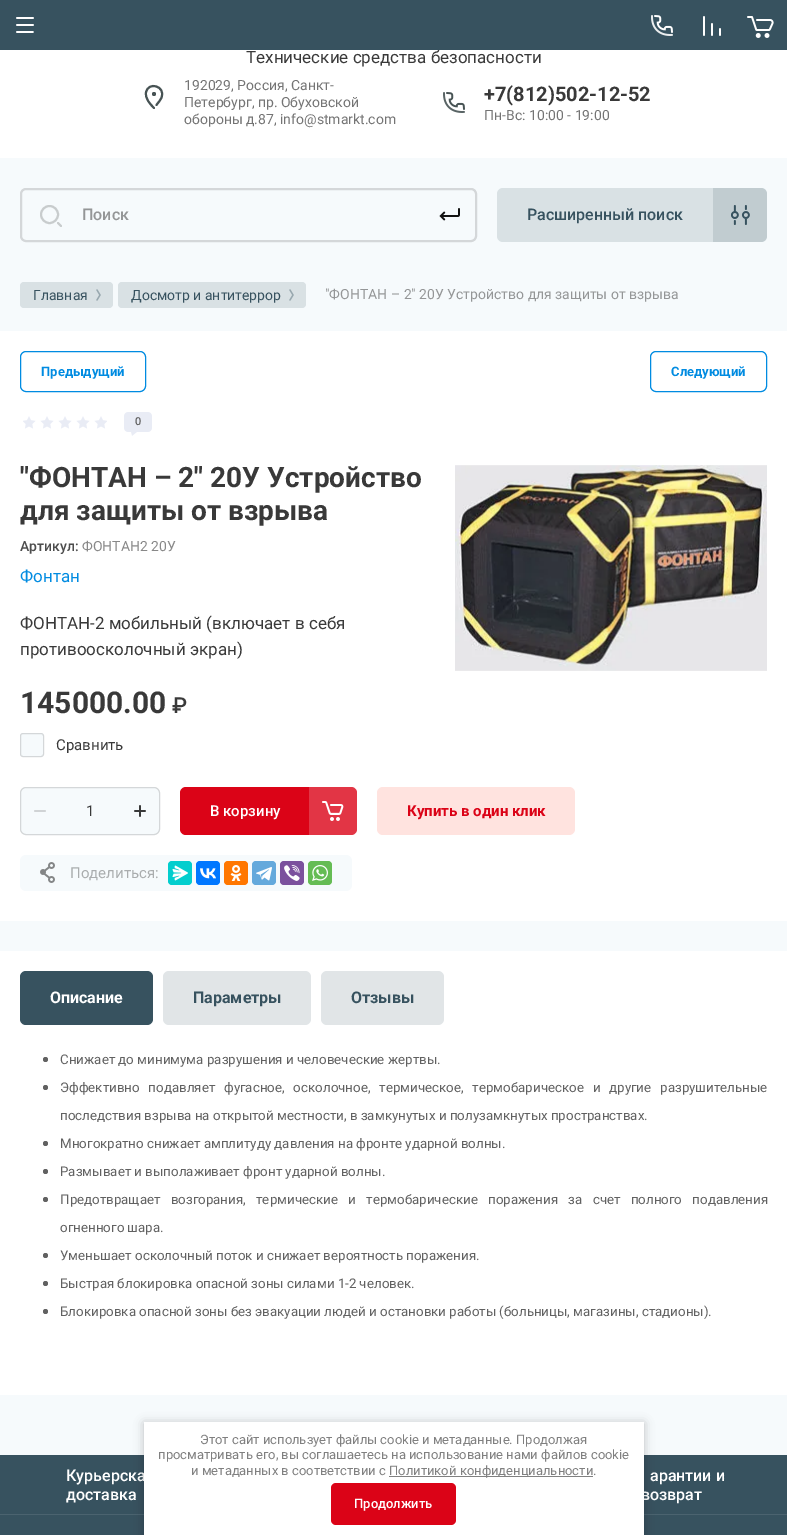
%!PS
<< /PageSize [787 1535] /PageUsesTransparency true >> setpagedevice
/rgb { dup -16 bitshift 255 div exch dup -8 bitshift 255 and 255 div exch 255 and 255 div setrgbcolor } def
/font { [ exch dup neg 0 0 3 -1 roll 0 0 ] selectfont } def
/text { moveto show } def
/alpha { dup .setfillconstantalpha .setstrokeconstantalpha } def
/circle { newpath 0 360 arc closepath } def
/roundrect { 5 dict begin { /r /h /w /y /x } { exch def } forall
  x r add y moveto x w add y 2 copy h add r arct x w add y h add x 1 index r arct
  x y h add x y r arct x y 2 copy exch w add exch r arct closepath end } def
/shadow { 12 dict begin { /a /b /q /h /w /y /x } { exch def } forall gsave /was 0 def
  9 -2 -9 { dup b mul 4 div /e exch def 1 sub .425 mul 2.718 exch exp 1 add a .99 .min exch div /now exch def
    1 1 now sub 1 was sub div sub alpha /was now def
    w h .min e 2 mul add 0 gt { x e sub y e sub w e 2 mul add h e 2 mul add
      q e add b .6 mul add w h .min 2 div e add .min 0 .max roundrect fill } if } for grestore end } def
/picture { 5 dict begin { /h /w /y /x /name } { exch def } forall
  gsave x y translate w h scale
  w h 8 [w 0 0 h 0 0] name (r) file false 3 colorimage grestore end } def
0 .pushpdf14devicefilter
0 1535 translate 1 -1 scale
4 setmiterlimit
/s1 { /Roboto-Regular 17 font 16#393939 rgb } def
/s2 { /Roboto-Regular 14 font 16#747474 rgb } def
/s3 { /Roboto-Bold 20 font 16#393939 rgb } def
/s4 { /Roboto-Medium 16 font 16#949697 rgb } def
/s5 { /Roboto-Medium 16 font 16#37525F rgb } def
/s6 { /Roboto-Regular 14 font 16#37525F rgb } def
/s7 { /Roboto-Regular 14 font 16#949697 rgb } def
/s8 { /Roboto-Bold 13 font 16#008BE1 rgb } def
/s9 { /Roboto-Medium 11 font 16#616161 rgb } def
/s10 { /Roboto-Bold 28 font 16#393939 rgb } def
/s11 { /Roboto-Medium 14 font 16#4D4D4D rgb } def
/s12 { /Roboto-Regular 14 font 16#888888 rgb } def
/s13 { /Roboto-Regular 17 font 16#008BE1 rgb } def
/s14 { /Roboto-Bold 30 font 16#393939 rgb } def
/s15 { /Roboto-Medium 22 font 16#393939 rgb } def
/s16 { /Roboto-Regular 15 font 16#393939 rgb } def
/s17 { /Roboto-Medium 15 font 16#FFFFFF rgb } def
/s18 { /Roboto-Bold 15 font 16#DB0317 rgb } def
/s19 { /Roboto-Regular 15 font 16#AAADAE rgb } def
/s20 { /Roboto-Bold 16 font 16#FFFFFF rgb } def
/s21 { /Roboto-Bold 16 font 16#37525F rgb } def
/s22 { /Roboto-Regular 13.33 font 16#616161 rgb } def
/s23 { /Roboto-Medium 16 font 16#FFFFFF rgb } def
/s24 { /Roboto-Regular 13 font 16#808080 rgb } def
/s25 { /Roboto-Medium 13 font 16#FFFFFF rgb } def
16#F6FAFC rgb
0 0 787 1535 rectfill
16#37525F rgb
0 0 787 50 rectfill
(pic1.raw) 16 17 18 16 picture
(pic2.raw) 651 15 22 21 picture
(pic3.raw) 703 16 18 20 picture
(pic4.raw) 747 16 27 22 picture
16#FFFFFF rgb
0 50 787 108 rectfill
s1
(Технические средства безопасности) 246 63 text
16#475354 rgb
2 setlinewidth
1 setlinecap
154 108 moveto 150 104 145 98.5 146 92.5 curveto 148 81 166 86 161.5 97.5 curveto 160.5 100.5 158 102.5 156.5 105 curveto stroke
154 94 2 circle fill
s2
(192029, Россия, Санкт-) 184 90 text
(Петербург, пр. Обуховской) 184 107 text
(обороны д.87, info@stmarkt.com) 184 124 text
(pic5.raw) 443 92 22 21 picture
s3
(+7\(812\)502-12-52) 484 101 text
s2
(Пн-Вс: 10:00 - 19:00) 484 120 text
16#D4D7D9 rgb
0 setlinecap
21 189 455 52 5 roundrect stroke
16#C8CCCD rgb
49.5 214.5 8.5 circle stroke
1 setlinecap
58 223 moveto 61 226 lineto stroke
s4
(Поиск) 82 220 text
(pic6.raw) 439 208 21 13 picture
16#D9E1E4 rgb
497 188 270 54 6 roundrect fill
s5
(Расширенный поиск) 527 220 text
0.15 alpha
713 188 moveto 761 188 lineto 764.5 188 767 190.5 767 194 curveto 767 236 lineto 767 239.5 764.5 242 761 242 curveto 713 242 lineto closepath fill
1 alpha
(pic7.raw) 731 205 19 20 picture
16#D9E1E4 rgb
20 282 93 26 4 roundrect fill
s6
(Главная) 33 300 text
(pic8.raw) 96 289 5 12 picture
16#D9E1E4 rgb
118 282 188 26 4 roundrect fill
s6
(Досмотр и антитеррор) 131 300 text
(pic8.raw) 289 289 5 12 picture
s7
("ФОНТАН – 2" 20У Устройство для защиты от взрыва) 325 299 text
16#FFFFFF rgb
0 331 787 590 rectfill
16#008BE1 rgb
1 setlinewidth
0 setlinecap
20.5 351.5 125 40 5.5 roundrect stroke
s8
(Предыдущий) 41 376 text
650.5 351.5 116 40 5.5 roundrect stroke
(Следующий) 671 376 text
(pic9.raw) 23 416 84 13 picture
(pic10.raw) 124 412 28 24 picture
s9
(0) 135 425 text
s10
("ФОНТАН – 2" 20У Устройство) 20 487 text
(для защиты от взрыва) 20 520 text
s11
(Артикул:) 20 551 text
s12
(ФОНТАН2 20У) 82 551 text
s13
(Фонтан) 20 582 text
s1
(ФОНТАН-2 мобильный \(включает в себя) 20 629 text
(противоосколочный экран\)) 20 655 text
s14
(145000.00) 20 713 text
s15
(₽) 172 713 text
16#F6FAFC rgb
20 733 24 24 3 roundrect fill
0.15 alpha
16#121212 rgb
20.5 733.5 23 23 2.5 roundrect stroke
1 alpha
s16
(Сравнить) 56 750 text
(pic11.raw) 455 465 312 206 picture
16#F6FAFC rgb
20.5 787.5 139 47 5.5 roundrect gsave fill grestore
16#D4D7D9 rgb
stroke
(pic12.raw) 34 810 12 2 picture
s16
(1) 86 816 text
(pic13.raw) 134 805 12 12 picture
16#DB0317 rgb
180 787 177 48 6 roundrect fill
s17
(В корзину) 210 816 text
0.2 alpha
309 787 moveto 351 787 lineto 354.5 787 357 789.5 357 793 curveto 357 829 lineto 357 832.5 354.5 835 351 835 curveto 309 835 lineto closepath fill
1 alpha
(pic14.raw) 322 801 22 20 picture
16#FFE3DF rgb
377 787 198 48 6 roundrect fill
s18
(Купить в один клик) 407 816 text
16#F6FAFC rgb
20 855 332 36 6 roundrect fill
(pic15.raw) 40 862 15 21 picture
s19
(Поделиться:) 70 878 text
16#03CECE rgb
168 861 24 24 4 roundrect fill
(pic16.raw) 172 865 16 16 picture
16#0077FF rgb
196 861 24 24 4 roundrect fill
(pic17.raw) 200 868 16 11 picture
16#FF7700 rgb
224 861 24 24 4 roundrect fill
(pic18.raw) 230 865 12 16 picture
16#64A9DC rgb
252 861 24 24 4 roundrect fill
(pic19.raw) 256 867 16 14 picture
16#7B519D rgb
280 861 24 24 4 roundrect fill
(pic20.raw) 284 865 16 16 picture
16#65BC54 rgb
308 861 24 24 4 roundrect fill
(pic21.raw) 312 865 16 16 picture
16#FFFFFF rgb
0 951 787 444 rectfill
16#37525F rgb
20 971 133 54 6 roundrect fill
s20
(Описание) 50 1003 text
16#E1E5E7 rgb
163 971 148 54 6 roundrect fill
s21
(Параметры) 193 1003 text
16#E1E5E7 rgb
321 971 123 54 6 roundrect fill
s21
(Отзывы) 351 1003 text
16#616161 rgb
45.5 1059.5 2.5 circle fill
s22
(Снижает до минимума разрушения и человеческие жертвы.) 60 1064 text
45.5 1087.5 2.5 circle fill
60 1092 moveto 5.5 0 32 (Эффективно подавляет фугасное, осколочное, термическое, термобарическое и другие разрушительные) widthshow
(последствия взрыва на открытой местности, в замкунутых и полузамкнутых пространствах.) 60 1120 text
45.5 1143.5 2.5 circle fill
(Многократно снижает амплитуду давления на фронте ударной волны.) 60 1148 text
45.5 1171.5 2.5 circle fill
(Размывает и выполаживает фронт ударной волны.) 60 1176 text
45.5 1199.5 2.5 circle fill
60 1204 moveto 7 0 32 (Предотвращает возгорания, термические и термобарические поражения за счет полного подавления) widthshow
(огненного шара.) 60 1232 text
45.5 1255.5 2.5 circle fill
(Уменьшает осколочный поток и снижает вероятность поражения.) 60 1260 text
45.5 1283.5 2.5 circle fill
(Быстрая блокировка опасной зоны силами 1-2 человек.) 60 1288 text
45.5 1311.5 2.5 circle fill
(Блокировка опасной зоны без эвакуации людей и остановки работы \(больницы, магазины, стадионы\).) 60 1316 text
16#37525F rgb
0 1455 787 59 rectfill
s23
(Курьерска) 66 1481 text
(доставка) 66 1500 text
(арантии и) 650 1481 text
(возврат) 641 1500 text
16#4B636F rgb
0 1514 787 1 rectfill
16#37525F rgb
0 1515 787 20 rectfill
16#000000 rgb
144 1423 500 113 0 5 0.23 shadow
16#FFFFFF rgb
144 1422 500 113 rectfill
s24
(Этот сайт использует файлы cookie и метаданные. Продолжая) 200 1444 text
(просматривать его, вы соглашаетесь на использование нами файлов cookie) 158 1459 text
(и метаданных в соответствии с) 191 1475 text
389 1476 204 1 rectfill
(Политикой конфиденциальности.) 389 1475 text
16#DB0317 rgb
331 1483 125 42 5 roundrect fill
s25
(Продолжить) 354 1508 text
.poppdf14devicefilter showpage
